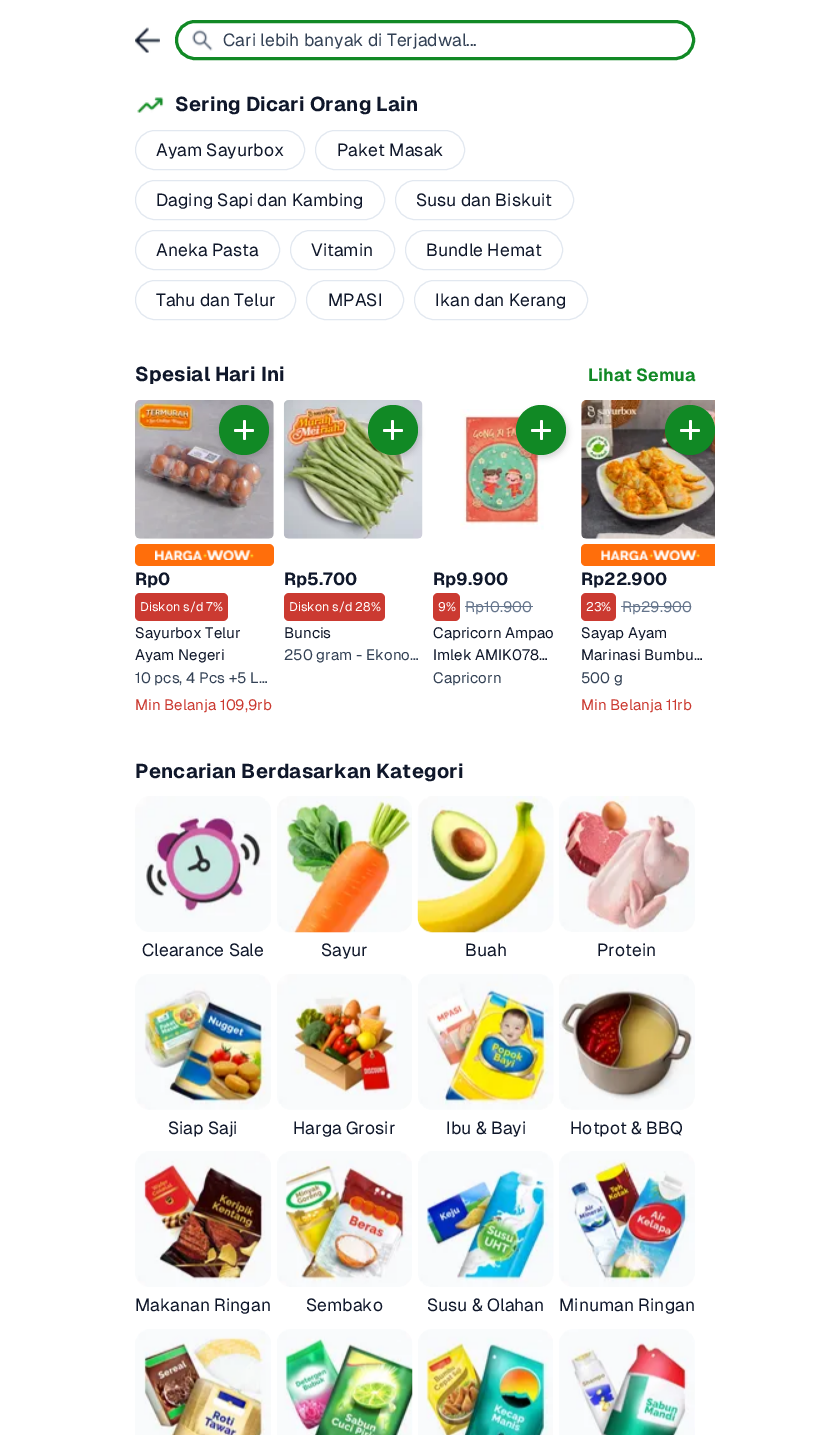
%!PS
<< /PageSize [830 1435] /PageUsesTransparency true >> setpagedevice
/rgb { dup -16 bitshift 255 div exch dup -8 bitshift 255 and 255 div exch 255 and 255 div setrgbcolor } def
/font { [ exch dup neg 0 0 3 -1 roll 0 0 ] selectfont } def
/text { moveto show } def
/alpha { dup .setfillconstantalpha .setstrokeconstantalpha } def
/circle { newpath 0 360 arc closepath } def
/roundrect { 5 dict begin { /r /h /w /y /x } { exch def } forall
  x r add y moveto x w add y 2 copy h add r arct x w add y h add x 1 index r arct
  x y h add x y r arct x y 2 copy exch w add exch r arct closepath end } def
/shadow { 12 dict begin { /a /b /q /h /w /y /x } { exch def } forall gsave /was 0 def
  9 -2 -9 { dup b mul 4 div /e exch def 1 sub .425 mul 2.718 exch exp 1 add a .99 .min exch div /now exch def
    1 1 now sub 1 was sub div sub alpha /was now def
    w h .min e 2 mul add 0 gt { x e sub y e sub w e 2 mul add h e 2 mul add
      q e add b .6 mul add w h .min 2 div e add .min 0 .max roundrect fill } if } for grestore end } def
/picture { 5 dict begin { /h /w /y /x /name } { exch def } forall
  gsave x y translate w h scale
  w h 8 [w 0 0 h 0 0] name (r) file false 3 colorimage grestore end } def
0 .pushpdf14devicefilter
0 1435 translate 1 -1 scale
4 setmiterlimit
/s1 { /Geist-Regular 17.5 font 16#334155 rgb } def
/s2 { /Geist-Regular 17.5 font 16#0F172A rgb } def
/s3 { /Geist-Bold 17.5 font 16#118925 rgb } def
/s4 { /Geist-Bold 17.5 font 16#0F172A rgb } def
/s5 { /Geist-Regular 12.5 font 16#FFFFFF rgb } def
/s6 { /Geist-Regular 15 font 16#0F172A rgb } def
/s7 { /Geist-Regular 15 font 16#334155 rgb } def
/s8 { /Geist-Regular 15 font 16#CB3A31 rgb } def
/s9 { /Geist-Regular 15 font 16#64748B rgb } def
16#FFFFFF rgb
0 0 830 1435 rectfill
(pic1.raw) 135 27 25 26 picture
16#118925 rgb
3 setlinewidth
176.5 21.5 517 37 18.5 roundrect stroke
(pic2.raw) 192 29 21 22 picture
s1
(Cari lebih banyak di Terjadwal...) 223 46 text
(pic3.raw) 137 97 27 16 picture
/Geist-Bold 20 font
16#0F172A rgb
175 111 moveto 0.2 0 (Sering Dicari Orang Lain) ashow
16#E2E8F0 rgb
1 setlinewidth
135.5 130.5 169 39 19.5 roundrect stroke
s2
(Ayam Sayurbox) 156 156 text
16#E2E8F0 rgb
315.5 130.5 149 39 19.5 roundrect stroke
s2
(Paket Masak) 337 156 text
16#E2E8F0 rgb
135.5 180.5 249 39 19.5 roundrect stroke
s2
(Daging Sapi dan Kambing) 156 206 text
16#E2E8F0 rgb
395.5 180.5 178 39 19.5 roundrect stroke
s2
(Susu dan Biskuit) 416 206 text
16#E2E8F0 rgb
135.5 230.5 144 39 19.5 roundrect stroke
s2
(Aneka Pasta) 156 256 text
16#E2E8F0 rgb
290.5 230.5 104 39 19.5 roundrect stroke
s2
(Vitamin) 311 256 text
16#E2E8F0 rgb
405.5 230.5 157 39 19.5 roundrect stroke
s2
(Bundle Hemat) 426 256 text
16#E2E8F0 rgb
135.5 280.5 160 39 19.5 roundrect stroke
s2
(Tahu dan Telur) 156 306 text
16#E2E8F0 rgb
306.5 280.5 97 39 19.5 roundrect stroke
s2
(MPASI) 328 306 text
16#E2E8F0 rgb
414.5 280.5 173 39 19.5 roundrect stroke
s2
(Ikan dan Kerang) 435 306 text
/Geist-Bold 20 font
135 381 moveto 0.2 0 (Spesial Hari Ini) ashow
s3
(Lihat Semua) 588 381 text
(pic4.raw) 135 400 139 139 picture
16#000000 rgb
220 408 50 50 25 3 0.16 shadow
16#118925 rgb
244 430 25 circle fill
16#FFFFFF rgb
234 429 20 3 1.5 roundrect fill
243 420 3 20 1.5 roundrect fill
16#FF6E0B rgb
135 544 139 22 5 roundrect fill
(pic5.raw) 155 550 99 10 picture
s4
(Rp0) 135 585 text
16#CB3A31 rgb
135 593 93 28 5 roundrect fill
s5
(Diskon s/d 7%) 140 611 text
s6
(Sayurbox Telur) 135 638 text
(Ayam Negeri) 135 660 text
s7
(10 pcs, 4 Pcs +5 L…) 135 683 text
s8
(Min Belanja 109,9rb) 135 710 text
(pic6.raw) 283 400 140 139 picture
16#000000 rgb
369 408 50 50 25 3 0.16 shadow
16#118925 rgb
393 430 25 circle fill
16#FFFFFF rgb
383 429 20 3 1.5 roundrect fill
391 420 3 20 1.5 roundrect fill
s4
(Rp5.700) 284 585 text
16#CB3A31 rgb
284 593 101 28 5 roundrect fill
s5
(Diskon s/d 28%) 289 611 text
s6
(Buncis) 284 638 text
s7
(250 gram - Ekono…) 284 660 text
(pic7.raw) 460 409 84 121 picture
16#000000 rgb
518 408 50 50 25 3 0.16 shadow
16#118925 rgb
541 430 25 circle fill
16#FFFFFF rgb
531 429 20 3 1.5 roundrect fill
540 420 3 20 1.5 roundrect fill
s4
(Rp9.900) 433 585 text
16#CB3A31 rgb
433 593 27 28 5 roundrect fill
s5
(9%) 438 611 text
s9
(Rp10.900) 465 612 text
465 606 68 1 rectfill
s6
(Capricorn Ampao) 433 638 text
(Imlek AMIK078…) 433 660 text
s7
(Capricorn) 433 683 text
(pic8.raw) 581 400 134 139 picture
gsave
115 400 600 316 rectclip
16#000000 rgb
666 408 50 50 25 3 0.16 shadow
grestore
16#118925 rgb
690 430 25 circle fill
16#FFFFFF rgb
680 429 20 3 1.5 roundrect fill
689 420 3 20 1.5 roundrect fill
16#FF6E0B rgb
586 544 moveto 715 544 lineto 715 566 lineto 586 566 lineto 583 566 581 564 581 561 curveto 581 549 lineto 581 546 583 544 586 544 curveto closepath fill
(pic9.raw) 601 550 99 10 picture
s4
(Rp22.900) 581 585 text
16#CB3A31 rgb
581 593 35 28 5 roundrect fill
s5
(23%) 586 611 text
s9
(Rp29.900) 622 612 text
621 606 70 1 rectfill
s6
(Sayap Ayam) 581 638 text
(Marinasi Bumbu…) 581 660 text
s7
(500 g) 581 683 text
s8
(Min Belanja 11rb) 581 710 text
/Geist-Bold 20 font
16#0F172A rgb
135 778 moveto 0.2 0 (Pencarian Berdasarkan Kategori) ashow
(pic10.raw) 135 796 136 136 picture
s2
(Clearance Sale) 142 956 text
(pic11.raw) 277 796 135 137 picture
(Sayur) 321 956 text
(pic12.raw) 417 796 137 137 picture
(Buah) 465 956 text
(pic13.raw) 559 796 136 136 picture
(Protein) 597 956 text
(pic14.raw) 135 974 136 136 picture
(Siap Saji) 168 1134 text
(pic15.raw) 277 974 135 136 picture
(Harga Grosir) 293 1134 text
(pic16.raw) 418 974 136 136 picture
(Ibu & Bayi) 446 1134 text
(pic17.raw) 559 974 136 136 picture
(Hotpot & BBQ) 570 1134 text
(pic18.raw) 135 1151 136 136 picture
(Makanan Ringan) 135 1311 text
(pic19.raw) 277 1151 135 136 picture
(Sembako) 306 1311 text
(pic20.raw) 418 1151 136 136 picture
(Susu & Olahan) 427 1311 text
(pic21.raw) 559 1151 136 136 picture
(Minuman Ringan) 559 1311 text
(pic22.raw) 135 1329 136 106 picture
(pic23.raw) 277 1329 136 106 picture
(pic24.raw) 418 1329 135 106 picture
(pic25.raw) 559 1329 136 106 picture
.poppdf14devicefilter showpage
